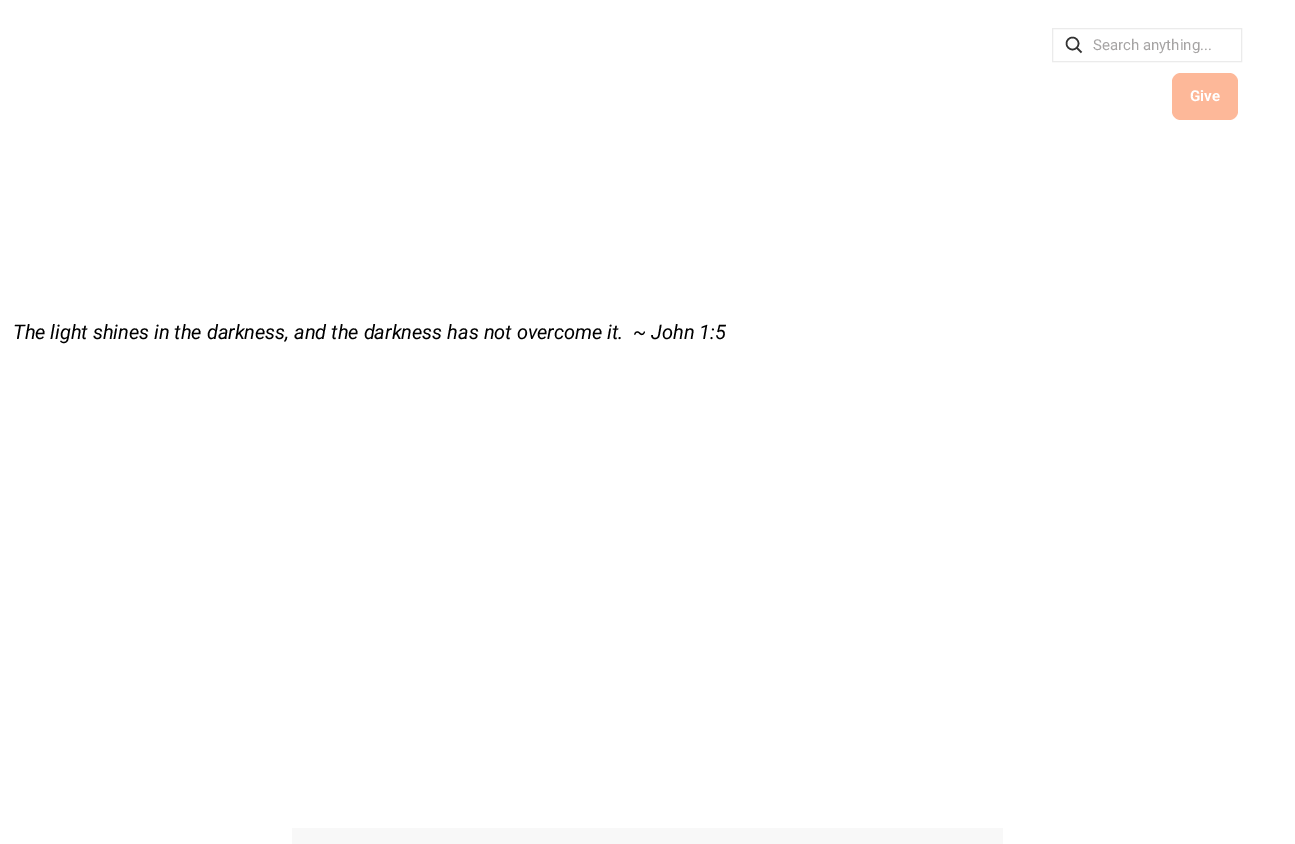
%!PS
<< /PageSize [1295 844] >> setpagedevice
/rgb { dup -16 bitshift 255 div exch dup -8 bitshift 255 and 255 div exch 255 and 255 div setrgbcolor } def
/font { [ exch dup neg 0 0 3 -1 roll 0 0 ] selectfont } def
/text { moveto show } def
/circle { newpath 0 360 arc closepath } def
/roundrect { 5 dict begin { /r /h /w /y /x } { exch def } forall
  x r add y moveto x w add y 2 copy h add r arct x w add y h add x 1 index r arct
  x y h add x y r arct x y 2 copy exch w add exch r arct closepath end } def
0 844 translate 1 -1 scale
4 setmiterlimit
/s1 { /Roboto-Regular 15 font 16#A6A4A4 rgb } def
/s2 { /Roboto-Bold 15 font 16#FFFFFF rgb } def
/s3 { /Roboto-Italic 20 font 16#000000 rgb } def
16#FFFFFF rgb
0 0 1295 844 rectfill
16#EBEBEB rgb
1052.5 28.5 189 33 rectstroke
16#333333 rgb
1.5 setlinewidth
1072.5 43.5 6 circle stroke
1076.5 47.5 moveto 1081.5 52.5 lineto stroke
s1
(Search anything...) 1093 50 text
16#FDB899 rgb
1172 73 66 47 9 roundrect fill
s2
(Give) 1190 101 text
s3
(The light shines in the darkness, and the darkness has not overcome it.) 13 339 text
(~ John 1:5) 633 339 text
16#F8F8F8 rgb
292 828 711 16 rectfill
showpage
